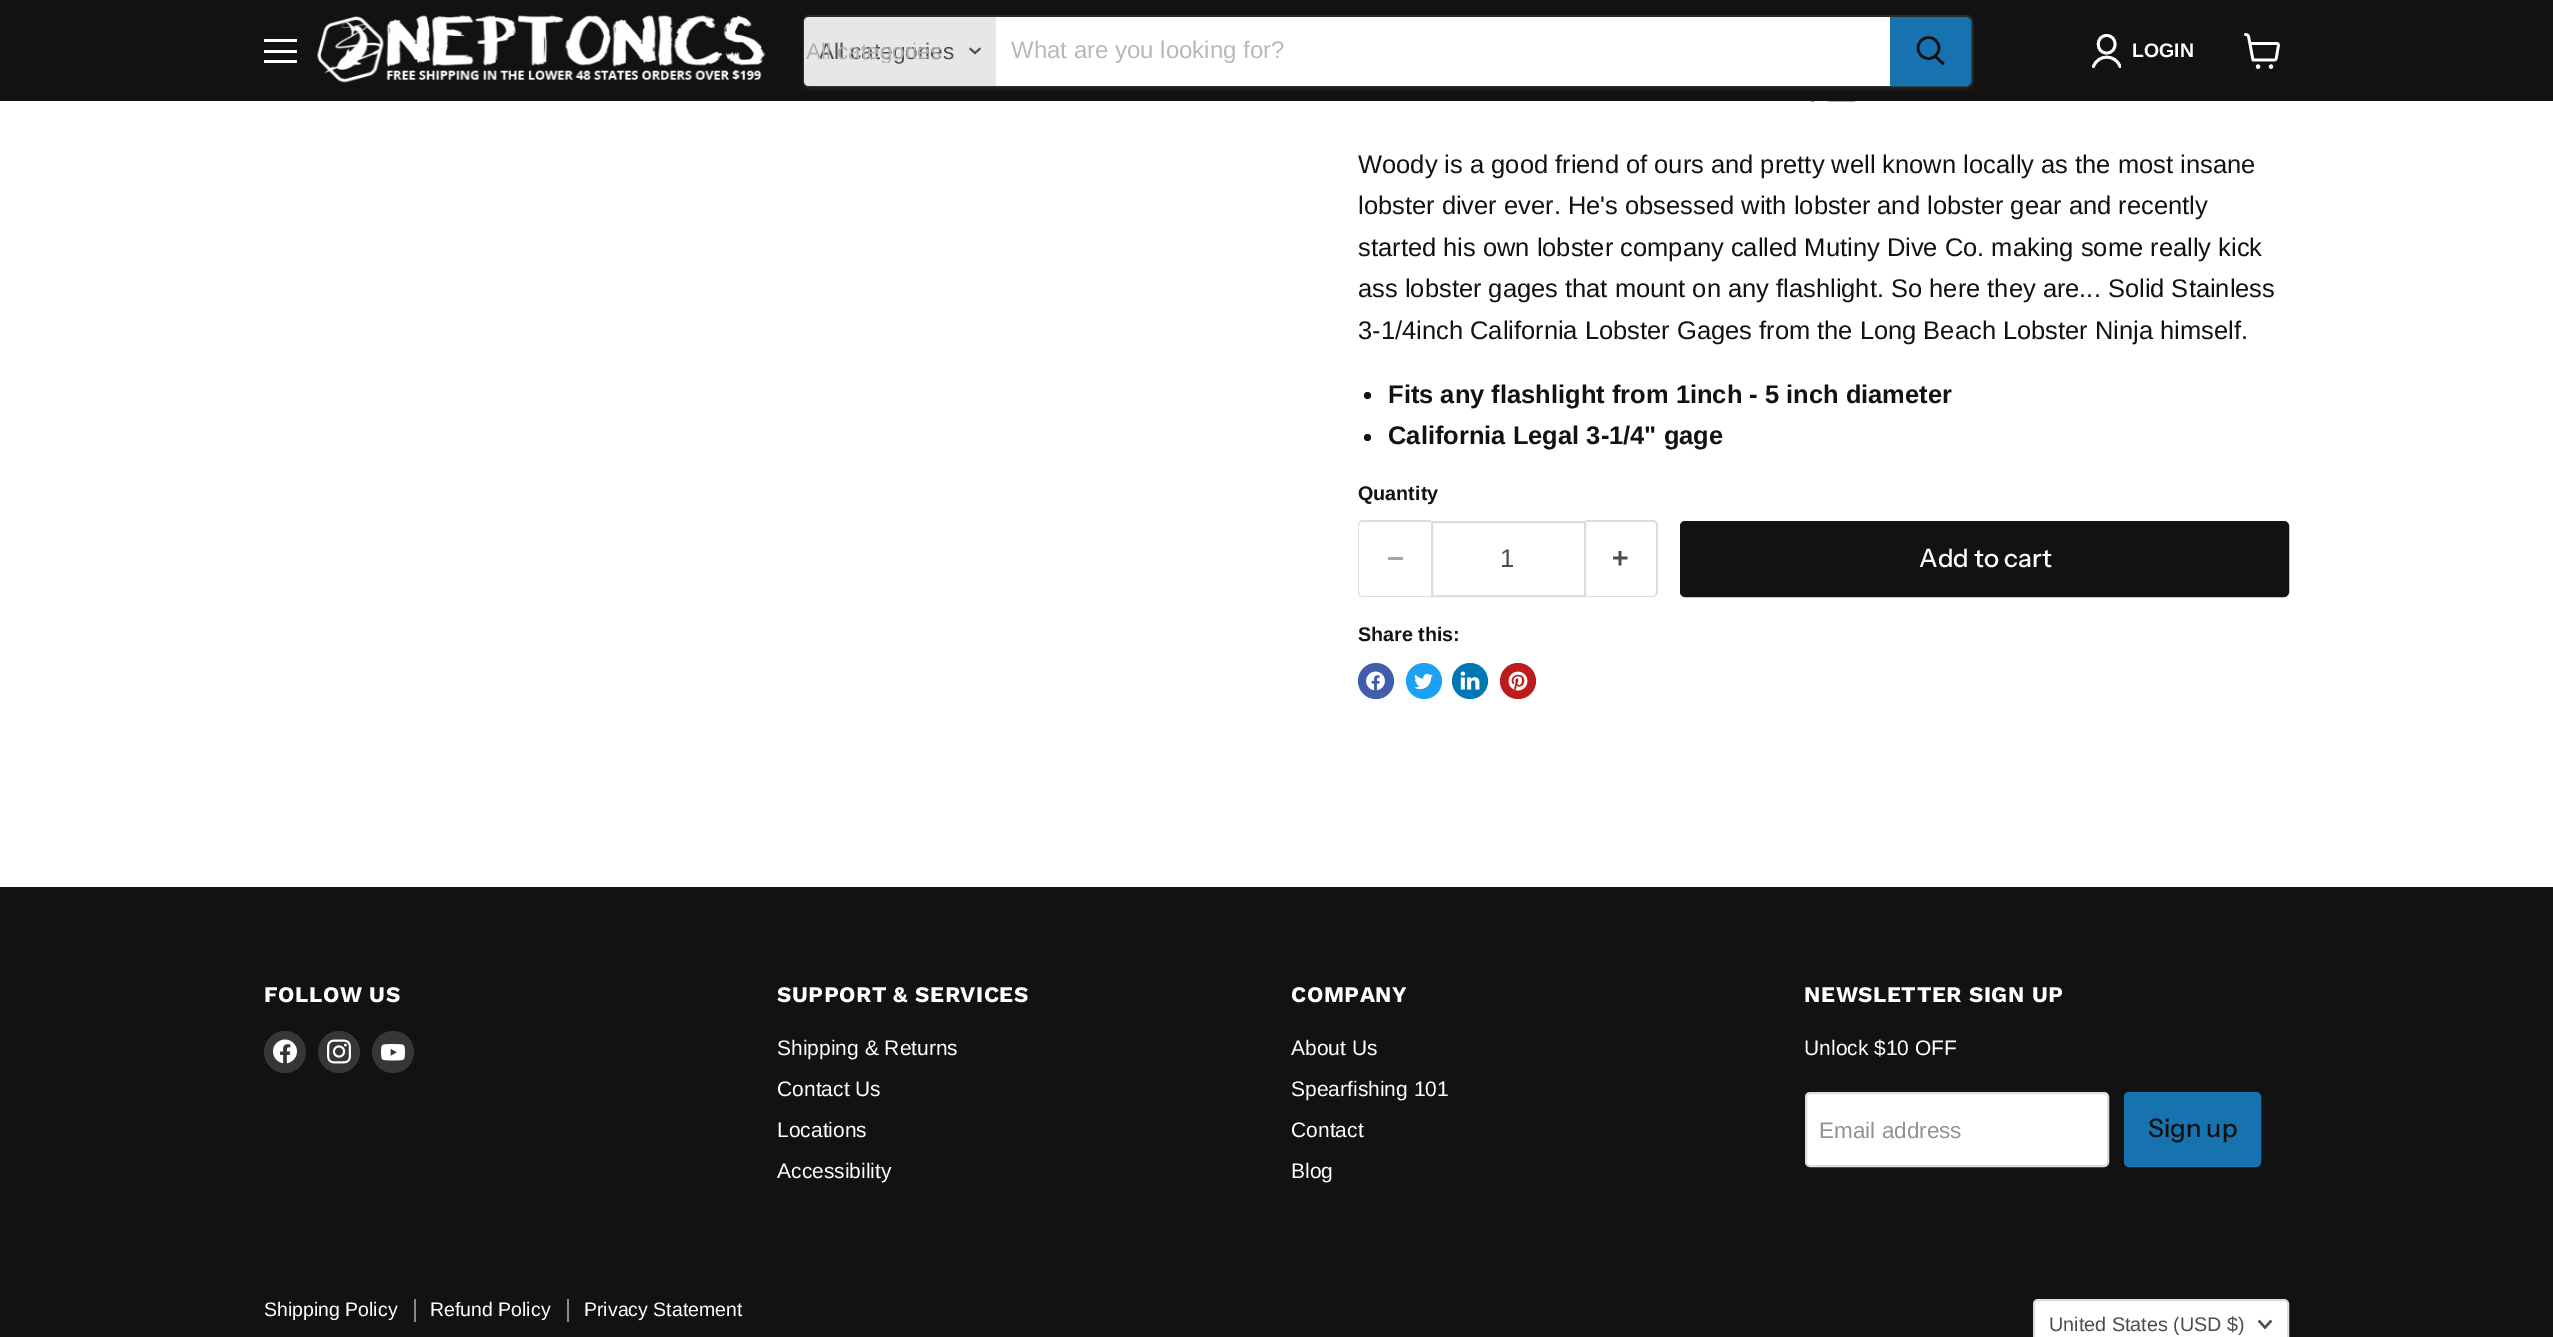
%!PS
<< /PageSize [2553 1337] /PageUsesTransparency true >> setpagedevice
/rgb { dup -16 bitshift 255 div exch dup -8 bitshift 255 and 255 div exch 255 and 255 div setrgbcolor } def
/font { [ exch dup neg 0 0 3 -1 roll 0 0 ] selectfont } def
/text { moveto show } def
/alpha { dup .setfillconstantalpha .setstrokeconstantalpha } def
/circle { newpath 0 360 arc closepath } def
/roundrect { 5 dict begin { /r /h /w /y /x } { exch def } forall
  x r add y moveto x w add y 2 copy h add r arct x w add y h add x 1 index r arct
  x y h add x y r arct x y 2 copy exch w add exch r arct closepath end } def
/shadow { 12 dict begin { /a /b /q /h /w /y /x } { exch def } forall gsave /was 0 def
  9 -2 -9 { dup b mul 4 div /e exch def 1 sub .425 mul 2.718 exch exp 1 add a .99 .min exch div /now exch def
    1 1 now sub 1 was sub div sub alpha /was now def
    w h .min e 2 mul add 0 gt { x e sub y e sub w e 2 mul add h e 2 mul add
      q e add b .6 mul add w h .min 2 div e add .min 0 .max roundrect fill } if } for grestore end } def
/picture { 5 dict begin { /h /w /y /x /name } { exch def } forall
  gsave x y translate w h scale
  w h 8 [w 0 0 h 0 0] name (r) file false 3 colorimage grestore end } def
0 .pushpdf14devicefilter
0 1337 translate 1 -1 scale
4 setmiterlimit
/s1 { /LiberationSans-Regular 22.5 font 16#4D4D4D rgb } def
/s2 { /LiberationSans-Regular 22.5 font 16#B1B1B1 rgb } def
/s3 { /LiberationSans-Regular 24 font 16#B8B8B8 rgb } def
/s4 { /LiberationSans-Bold 19.5 font 16#FFFFFF rgb } def
/s5 { /LiberationSans-Regular 25.5 font 16#121212 rgb } def
/s6 { /LiberationSans-Bold 25.5 font 16#121212 rgb } def
/s7 { /LiberationSans-Bold 19.75 font 16#121212 rgb } def
/s8 { /LiberationSans-Regular 25.5 font 16#4D4D4D rgb } def
/s9 { /InstrumentSans-Medium 25.5 font 16#FFFFFF rgb } def
/s10 { /LiberationSans-Regular 21 font 16#FFFFFF rgb } def
/s11 { /LiberationSans-Regular 22.5 font 16#949494 rgb } def
/s12 { /InstrumentSans-Medium 25.5 font 16#121212 rgb } def
/s13 { /LiberationSans-Regular 19.5 font 16#FFFFFF rgb } def
/s14 { /LiberationSans-Regular 19.75 font 16#4D4D4D rgb } def
16#FFFFFF rgb
0 0 2553 1337 rectfill
16#121212 rgb
0 0 2553 101 rectfill
16#FFFFFF rgb
264 39 33 3 rectfill
264 50 33 3 rectfill
264 60 33 3 rectfill
(pic1.raw) 317 15 449 68 picture
16#808080 rgb
803 18 1170 72 6 2 0.11 shadow
0.2 alpha
2 setlinewidth
804 16 1168 70 5 roundrect stroke
1 alpha
16#E7E7E7 rgb
809 17 moveto 996 17 lineto 996 86 lineto 809 86 lineto 806 86 804 84 804 81 curveto 804 22 lineto 804 19 806 17 809 17 curveto closepath fill
s1
(All categories) 819 59 text
gsave
806 38 189 25 rectclip
s2
(All categories) 806 59 text
grestore
1.9 setlinewidth
2 setlinecap
975 53 moveto 979.5 49 lineto 975 53 moveto 970.5 49 lineto stroke
16#FFFFFF rgb
996 17 894 69 rectfill
s3
(What are you looking for?) 1011 58 text
16#1773B0 rgb
1891 18 moveto 1966 18 lineto 1968 18 1970 20 1970 22 curveto 1970 81 lineto 1970 83 1968 85 1966 85 curveto 1891 85 lineto closepath gsave fill grestore
2 setlinewidth
0 setlinecap
stroke
16#121212 rgb
2.6 setlinewidth
1 setlinecap
1943 63.5 moveto 1935.5 56.5 lineto stroke
0 setlinecap
1928.5 48 10.5 circle stroke
16#FFFFFF rgb
2.8 setlinewidth
1 setlinecap
1 setlinejoin
2106.5 53 moveto 2118 53 2118 35.5 2106.5 35.5 curveto 2095.5 35.5 2095.5 53 2106.5 53 curveto closepath stroke
gsave
2091 33 30 36 rectclip
2120 66.5 moveto 2115.5 54 2098 54 2093.5 66.5 curveto stroke
grestore
s4
(LOGIN) 2132 57 text
(pic2.raw) 2244 33 36 36 picture
(pic3.raw) 1810 101 46 1 picture
s5
(Woody is a good friend of ours and pretty well known locally as the most insane) 1358 173 text
(lobster diver ever. He's obsessed with lobster and lobster gear and recently) 1358 214 text
(started his own lobster company called Mutiny Dive Co. making some really kick) 1358 256 text
(ass lobster gages that mount on any flashlight. So here they are... Solid Stainless) 1358 297 text
(3-1/4inch California Lobster Gages from the Long Beach Lobster Ninja himself.) 1358 339 text
1367.5 395.5 3.5 circle fill
s6
(Fits any flashlight from 1inch - 5 inch diameter) 1388 403 text
1367.5 437.5 3.5 circle fill
(California Legal 3-1/4" gage) 1388 444 text
s7
(Quantity) 1358 500 text
16#DDDDDD rgb
1362 520 moveto 1431 520 lineto 1431 597 lineto 1362 597 lineto 1360 597 1358 595 1358 592 curveto 1358 525 lineto 1358 523 1360 520 1362 520 curveto closepath 1362 522 moveto 1431 522 lineto 1431 596 lineto 1362 596 lineto 1360 596 1359 594 1359 592 curveto 1359 525 lineto 1359 523 1360 522 1362 522 curveto closepath eofill
16#A6A6A6 rgb
1388 557 15 3 rectfill
16#DDDDDD rgb
2 setlinewidth
0 setlinecap
0 setlinejoin
1432 522 153 74 rectstroke
s8
(1) 1500 567 text
16#DDDDDD rgb
1586 520 moveto 1653 520 lineto 1655 520 1658 523 1658 525 curveto 1658 592 lineto 1658 595 1655 597 1653 597 curveto 1586 597 lineto closepath 1586 522 moveto 1653 522 lineto 1655 522 1656 523 1656 525 curveto 1656 592 lineto 1656 594 1655 596 1653 596 curveto 1586 596 lineto closepath eofill
(pic4.raw) 1613 551 15 15 picture
16#121212 rgb
1681 522 607 74 4 roundrect gsave fill grestore
stroke
s9
(Add to cart) 1919 567 text
s7
(Share this:) 1358 641 text
16#425DAB rgb
1376 681 18 circle fill
(pic5.raw) 1366 671 19 20 picture
16#1DA1F2 rgb
1424 681 18 circle fill
(pic6.raw) 1414 673 19 17 picture
16#0077B5 rgb
1470 681 18 circle fill
(pic7.raw) 1460 671 20 19 picture
16#BD1C1C rgb
1518 681 18 circle fill
(pic8.raw) 1508 671 20 20 picture
16#121212 rgb
0 887 2553 450 rectfill
/WorkSans-Bold 22.25 font
16#FFFFFF rgb
264 1002 moveto 0.5 0 (FOLLOW US) ashow
16#363636 rgb
285 1052 21 circle fill
(pic9.raw) 273 1039 24 25 picture
339 1052 21 circle fill
(pic10.raw) 327 1039 24 25 picture
393 1052 21 circle fill
(pic11.raw) 381 1044 24 17 picture
16#FFFFFF rgb
777 1002 moveto 0.5 0 (SUPPORT & SERVICES) ashow
s10
(Shipping & Returns) 777 1055 text
(Contact Us) 777 1096 text
(Locations) 777 1137 text
(Accessibility) 777 1178 text
/WorkSans-Bold 22.25 font
1291 1002 moveto 0.5 0 (COMPANY) ashow
s10
(About Us) 1291 1055 text
(Spearfishing 101) 1291 1096 text
(Contact) 1291 1137 text
(Blog) 1291 1178 text
/WorkSans-Bold 22.25 font
1804 1002 moveto 0.5 0 (NEWSLETTER SIGN UP) ashow
s10
(Unlock $10 OFF) 1804 1055 text
1806 1093 302 73 4 roundrect gsave fill grestore
16#DDDDDD rgb
stroke
s11
(Email address) 1819 1138 text
16#1773B0 rgb
2125 1093 135 73 4 roundrect gsave fill grestore
stroke
s12
(Sign up) 2148 1137 text
16#898989 rgb
414 1299 2 23 rectfill
s13
(Shipping Policy) 264 1316 text
16#898989 rgb
567 1299 2 23 rectfill
s13
(Refund Policy) 430 1316 text
(Privacy Statement) 584 1316 text
2034 1300 254 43 4 roundrect gsave fill grestore
16#DDDDDD rgb
stroke
s14
(United States \(USD $\)) 2049 1331 text
2.3 setlinewidth
2 setlinecap
2265 1327.5 moveto 2270.5 1321.5 lineto 2265 1327.5 moveto 2259.5 1321.5 lineto stroke
.poppdf14devicefilter showpage
